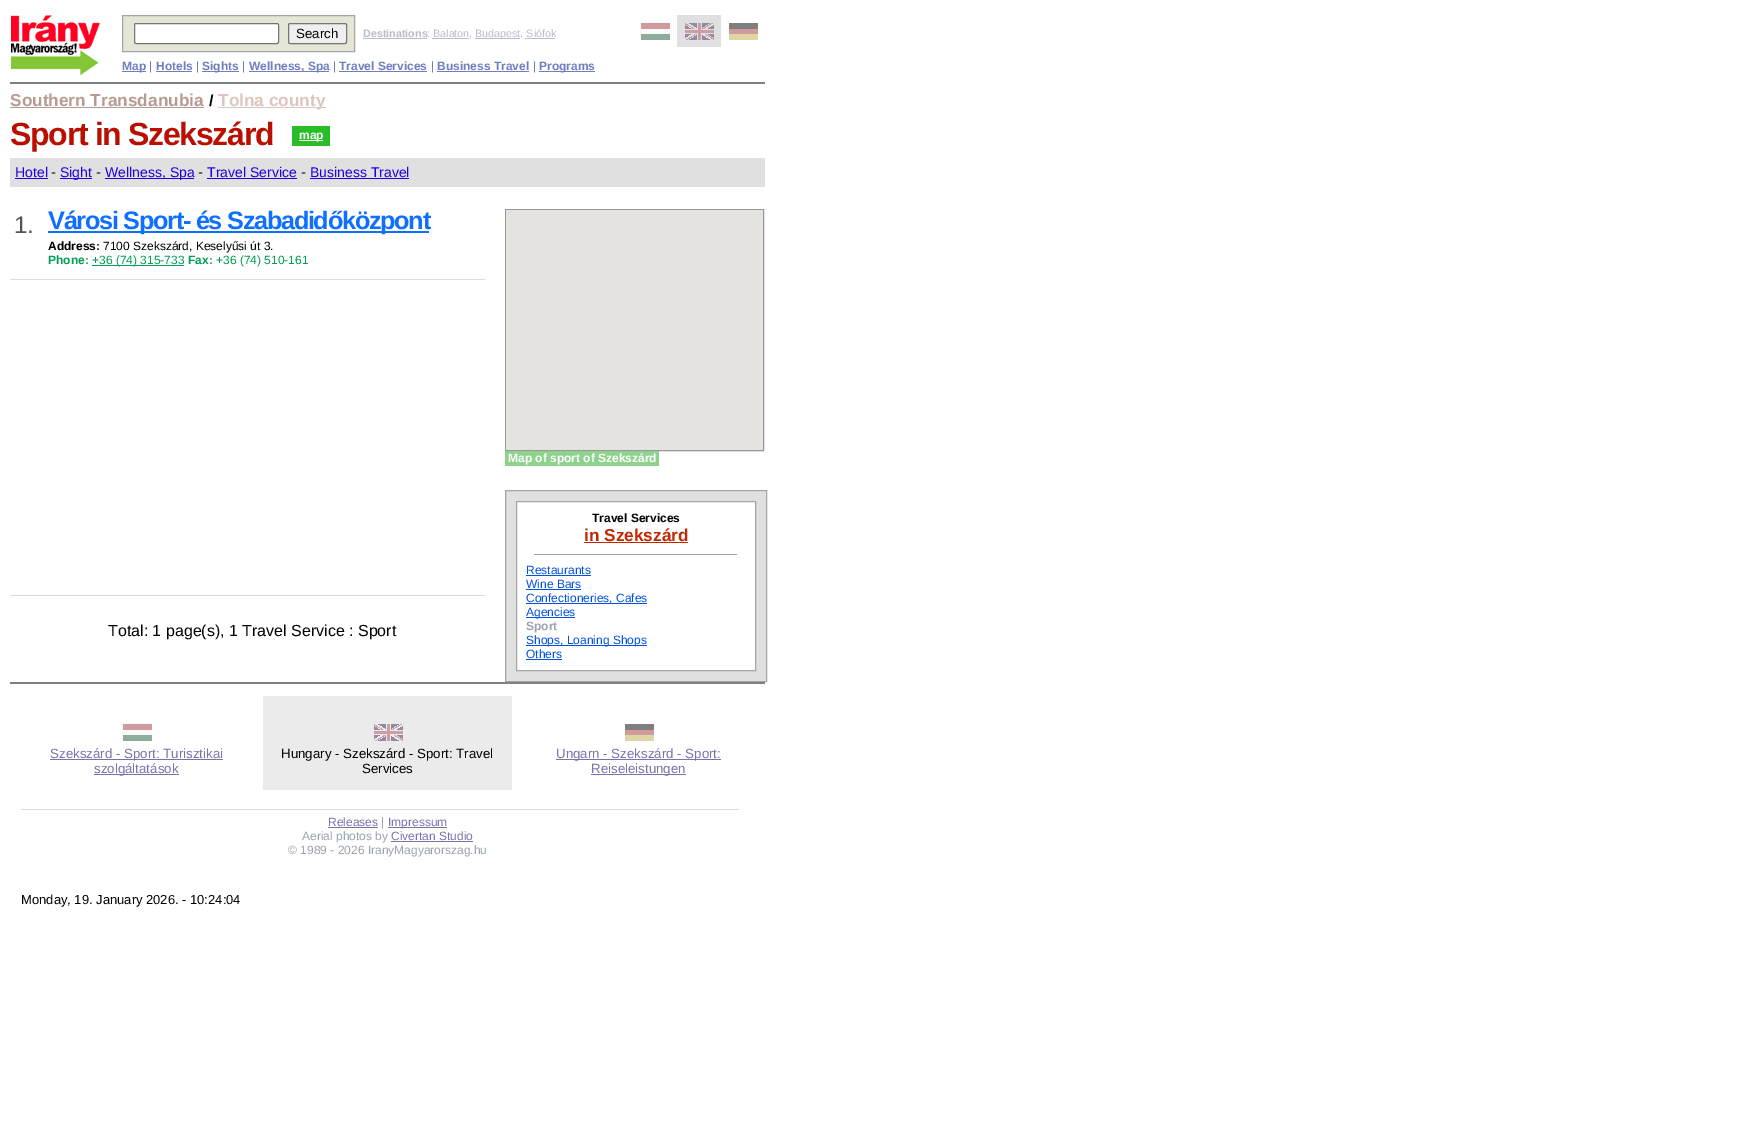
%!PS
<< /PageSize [1738 1127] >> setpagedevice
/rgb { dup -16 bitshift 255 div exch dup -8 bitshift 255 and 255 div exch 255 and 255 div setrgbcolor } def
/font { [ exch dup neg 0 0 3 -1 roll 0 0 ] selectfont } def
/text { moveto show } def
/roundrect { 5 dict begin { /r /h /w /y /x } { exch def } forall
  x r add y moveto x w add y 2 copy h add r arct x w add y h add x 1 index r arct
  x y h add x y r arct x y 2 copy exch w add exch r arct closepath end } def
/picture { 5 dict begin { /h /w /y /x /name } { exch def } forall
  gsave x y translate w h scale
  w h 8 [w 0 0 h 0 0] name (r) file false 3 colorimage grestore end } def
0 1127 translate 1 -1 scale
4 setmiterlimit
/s1 { /LiberationSans-Regular 13.3 font 16#000000 rgb } def
/s2 { /LiberationSans-Bold 10.75 font 16#B7BDCE rgb } def
/s3 { /LiberationSans-Regular 10.75 font 16#B7BDCE rgb } def
/s4 { /LiberationSans-Bold 12 font 16#707EBD rgb } def
/s5 { /LiberationSans-Regular 12 font 16#707EBD rgb } def
/s6 { /LiberationSans-Bold 17.25 font 16#B99A92 rgb } def
/s7 { /LiberationSans-Bold 16 font 16#000000 rgb } def
/s8 { /LiberationSans-Bold 17.25 font 16#DFC5BF rgb } def
/s9 { /LiberationSans-Bold 12 font 16#FFFFFF rgb } def
/s10 { /LiberationSans-Regular 14 font 16#2200DD rgb } def
/s11 { /LiberationSans-Regular 15 font 16#000000 rgb } def
/s12 { /LiberationSans-Regular 24 font 16#535353 rgb } def
/s13 { /LiberationSans-Bold 12 font 16#000000 rgb } def
/s14 { /LiberationSans-Regular 12 font 16#000000 rgb } def
/s15 { /LiberationSans-Bold 12 font 16#009E56 rgb } def
/s16 { /LiberationSans-Regular 12 font 16#009E56 rgb } def
/s17 { /LiberationSans-Regular 16 font 16#000000 rgb } def
/s18 { /LiberationSans-Bold 17.25 font 16#C12800 rgb } def
/s19 { /LiberationSans-Regular 12 font 16#0051DE rgb } def
/s20 { /LiberationSans-Bold 12 font 16#99A4B1 rgb } def
/s21 { /LiberationSans-Regular 13.3 font 16#7B72AC rgb } def
/s22 { /LiberationSans-Regular 12 font 16#7B72AC rgb } def
/s23 { /LiberationSans-Regular 12 font 16#99A4B1 rgb } def
/s24 { /LiberationSans-Regular 13 font 16#000000 rgb } def
16#FFFFFF rgb
0 0 1738 1127 rectfill
(pic1.raw) 11 15 89 60 picture
16#E6E6D6 rgb
122.5 15.5 moveto 354.5 15.5 lineto 354.5 51.5 lineto 122.5 51.5 lineto closepath gsave fill grestore
16#A5A5A5 rgb
stroke
16#FFFFFF rgb
134.5 23.5 144 20 1.5 roundrect gsave fill grestore
16#767676 rgb
stroke
16#EFEFEF rgb
288.5 23.5 58 20 1.5 roundrect gsave fill grestore
16#767676 rgb
stroke
s1
(Search) 296 38 text
s2
(Destinations) 363 37 text
s3
(: Balaton,) 427 37 text
363 38 64 1 rectfill
432 38 37 1 rectfill
475 38 45 1 rectfill
(Budapest, Siófok) 475 37 text
525 38 30 1 rectfill
(pic2.raw) 640 22 30 18 picture
16#E0E0E0 rgb
677 15 44 32 rectfill
(pic3.raw) 685 23 29 17 picture
(pic4.raw) 729 23 29 17 picture
16#707EBD rgb
122 71 24 1 rectfill
s4
(Map) 122 70 text
s5
(|) 149 70 text
s4
(Hotels) 156 70 text
156 71 36 1 rectfill
s5
(|) 196 70 text
202 71 37 1 rectfill
s4
(Sights) 202 70 text
s5
(|) 242 70 text
249 71 80 1 rectfill
s4
(Wellness, Spa) 249 70 text
s5
(|) 333 70 text
s4
(Travel Services) 339 70 text
339 71 88 1 rectfill
s5
(|) 431 70 text
s4
(Business Travel) 437 70 text
437 71 92 1 rectfill
s5
(|) 533 70 text
539 71 56 1 rectfill
s4
(Programs) 539 70 text
16#808080 rgb
10 82 755 2 rectfill
s6
(Southern Transdanubia) 10 106 text
10 107 194 1 rectfill
s7
(/) 209 106 text
16#DFC5BF rgb
218 107 108 1 rectfill
s8
(Tolna county) 218 106 text
/LiberationSans-Bold 32 font
16#B90E00 rgb
10 145 moveto -1.3 0 (Sport in Szekszárd) ashow
16#29BD28 rgb
292 126 38 20 rectfill
16#FFFFFF rgb
299 140 24 1 rectfill
s9
(map) 299 139 text
16#E0E0E0 rgb
10 158 755 29 rectfill
s10
(Hotel) 15 177 text
15 178 33 1 rectfill
s11
(-) 51 177 text
16#2200DD rgb
60 178 32 1 rectfill
s10
(Sight) 60 177 text
s11
(-) 96 177 text
16#2200DD rgb
105 178 89 1 rectfill
s10
(Wellness, Spa) 105 177 text
s11
(-) 198 177 text
s10
(Travel Service) 207 177 text
207 178 90 1 rectfill
s11
(-) 301 177 text
s10
(Business Travel) 310 177 text
310 178 99 1 rectfill
s12
(1.) 14 233 text
16#0F6FFF rgb
48 231 381 2 rectfill
/LiberationSans-Bold 25.3 font
48 229 moveto -1.3 0 (Városi Sport- és Szabadidőközpont) ashow
s13
(Address:) 48 250 text
s14
(7100 Szekszárd, Keselyűsi út 3.) 103 250 text
s15
(Phone:) 48 264 text
92 265 92 1 rectfill
s16
(+36 \(74\) 315-733) 92 264 text
s15
(Fax:) 188 264 text
s16
(+36 \(74\) 510-161) 216 264 text
16#DDDDDD rgb
10 279 475 1 rectfill
10 595 475 1 rectfill
s17
(Total: 1 page\(s\), 1 Travel Service : Sport) 108 636 text
16#979797 rgb
505.5 209.5 258 241 rectstroke
16#E5E3DF rgb
506 210 257 240 rectfill
16#8ED28E rgb
505 451 154 15 rectfill
s9
(Map of sport of Szekszárd) 508 462 text
16#E0E0E0 rgb
505.5 490.5 moveto 766.5 490.5 lineto 766.5 681.5 lineto 505.5 681.5 lineto closepath gsave fill grestore
16#A5A5A5 rgb
stroke
16#FFFFFF rgb
516.5 501.5 moveto 755.5 501.5 lineto 755.5 670.5 lineto 516.5 670.5 lineto closepath gsave fill grestore
16#A5A5A5 rgb
stroke
s13
(Travel Services) 592 522 text
s18
(in Szekszárd) 584 541 text
584 542 104 1 rectfill
16#9F9F9F rgb
534 554 204 1 rectfill
16#EEEEEE rgb
737 554 1 1 rectfill
s19
(Restaurants) 526 574 text
526 575 65 1 rectfill
(Wine Bars) 526 588 text
526 589 55 1 rectfill
526 603 121 1 rectfill
(Confectioneries, Cafes) 526 602 text
526 617 49 1 rectfill
(Agencies) 526 616 text
s20
(Sport) 526 630 text
16#0051DE rgb
526 645 121 1 rectfill
s19
(Shops, Loaning Shops) 526 644 text
(Others) 526 658 text
526 659 36 1 rectfill
16#808080 rgb
10 682 755 2 rectfill
(pic2.raw) 122 723 30 18 picture
16#7B72AC rgb
50 759 173 1 rectfill
s21
(Szekszárd - Sport: Turisztikai) 50 758 text
94 774 85 1 rectfill
(szolgáltatások) 94 773 text
16#EBEBEB rgb
263 696 249 94 rectfill
(pic5.raw) 374 724 29 17 picture
s1
(Hungary - Szekszárd - Sport: Travel) 281 758 text
(Services) 362 773 text
(pic4.raw) 625 724 29 17 picture
16#7B72AC rgb
556 759 165 1 rectfill
(Ungarn - Szekszárd - Sport:) 556 758 text
591 774 95 1 rectfill
(Reiseleistungen) 591 773 text
16#DDDDDD rgb
21 809 718 1 rectfill
s22
(Releases) 328 826 text
328 827 50 1 rectfill
s23
(|) 381 826 text
16#7B72AC rgb
388 827 59 1 rectfill
(Impressum) 388 826 text
s23
(Aerial photos by) 302 840 text
s22
(Civertan Studio) 391 840 text
391 841 82 1 rectfill
s23
(© 1989 - 2026 IranyMagyarorszag.hu) 288 854 text
s24
(Monday, 19. January 2026. - 10:24:04) 21 904 text
showpage
